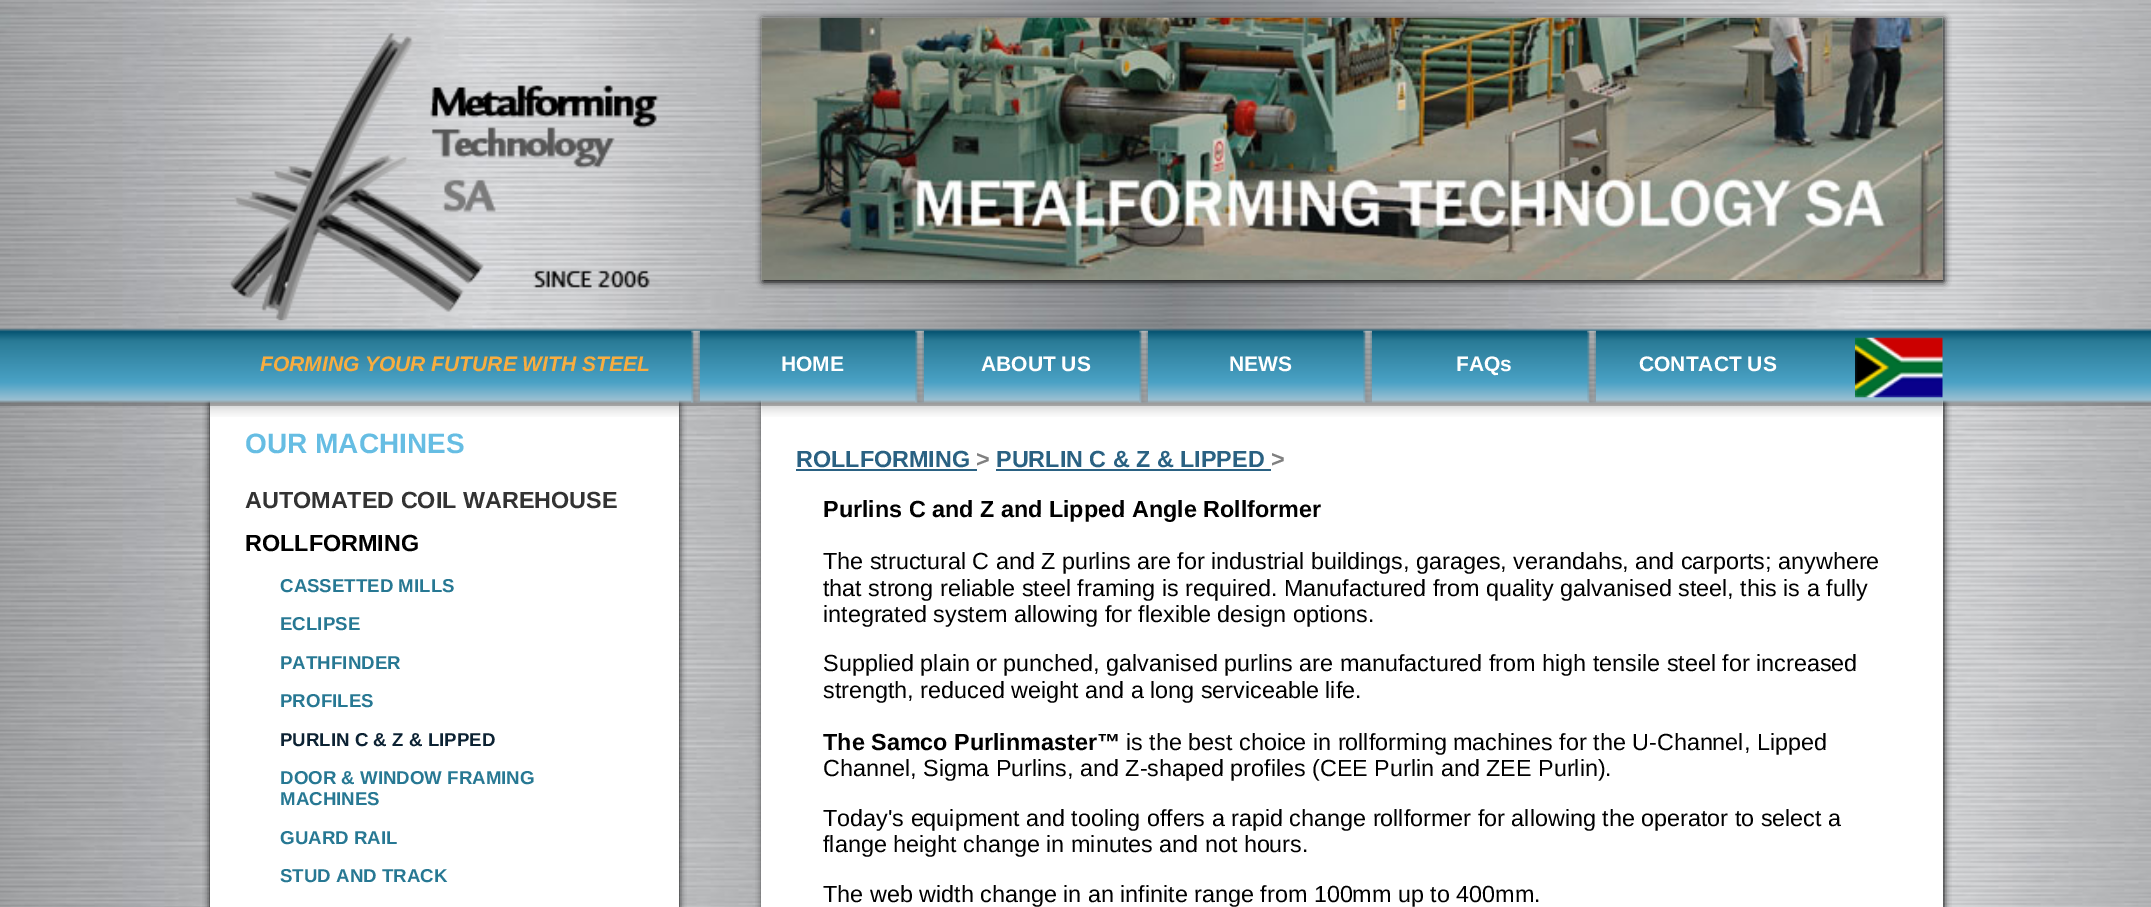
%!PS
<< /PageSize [2151 907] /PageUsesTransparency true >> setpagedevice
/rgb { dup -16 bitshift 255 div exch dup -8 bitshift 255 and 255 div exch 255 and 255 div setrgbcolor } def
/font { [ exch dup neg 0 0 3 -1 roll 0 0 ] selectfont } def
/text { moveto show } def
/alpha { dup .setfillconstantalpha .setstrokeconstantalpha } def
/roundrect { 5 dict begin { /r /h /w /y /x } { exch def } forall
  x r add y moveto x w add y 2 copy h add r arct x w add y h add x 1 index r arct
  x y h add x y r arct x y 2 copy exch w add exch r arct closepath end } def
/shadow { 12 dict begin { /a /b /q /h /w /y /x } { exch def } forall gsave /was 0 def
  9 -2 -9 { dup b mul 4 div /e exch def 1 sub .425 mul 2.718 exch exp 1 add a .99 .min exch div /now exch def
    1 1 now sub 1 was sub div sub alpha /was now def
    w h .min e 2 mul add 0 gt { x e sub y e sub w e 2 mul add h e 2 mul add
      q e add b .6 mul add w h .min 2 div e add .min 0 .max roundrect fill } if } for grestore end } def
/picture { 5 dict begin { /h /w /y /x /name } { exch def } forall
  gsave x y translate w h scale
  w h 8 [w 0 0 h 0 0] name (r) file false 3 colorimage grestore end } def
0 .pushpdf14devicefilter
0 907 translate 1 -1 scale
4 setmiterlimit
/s1 { /LiberationSans-BoldItalic 21 font 16#F8AD40 rgb } def
/s2 { /LiberationSans-Bold 21 font 16#FFFFFF rgb } def
/s3 { /LiberationSans-Bold 28 font 16#66BDE3 rgb } def
/s4 { /LiberationSans-Bold 23.35 font 16#333333 rgb } def
/s5 { /LiberationSans-Bold 23.35 font 16#000000 rgb } def
/s6 { /LiberationSans-Bold 18.7 font 16#277893 rgb } def
/s7 { /LiberationSans-Bold 18.7 font 16#0C2233 rgb } def
/s8 { /LiberationSans-Bold 23.35 font 16#2A6182 rgb } def
/s9 { /LiberationSans-Bold 23.35 font 16#808080 rgb } def
/s10 { /LiberationSans-Regular 23.35 font 16#000000 rgb } def
16#FFFFFF rgb
0 0 2151 907 rectfill
(pic1.raw) 0 0 2151 907 picture
(pic2.raw) 229 33 430 288 picture
16#000000 rgb
763 19 1181 263 0 3.5 1 shadow
(pic3.raw) 761 17 1182 263 picture
210 401 469 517 0 3.5 1 shadow
(pic11.raw) 210 400 469 17 picture
763 396 1181 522 0 3.5 1 shadow
16#FFFFFF rgb
761 400 1182 507 rectfill
(pic12.raw) 761 400 1182 17 picture
(pic4.raw) 0 328 2151 78 picture
(pic5.raw) 691 330 9 73 picture
s1
(FORMING YOUR FUTURE WITH STEEL) 260 371 text
(pic6.raw) 915 330 9 73 picture
s2
(HOME) 781 371 text
(pic7.raw) 1139 330 9 73 picture
(ABOUT US) 981 371 text
(pic8.raw) 1363 330 9 73 picture
(NEWS) 1229 371 text
(pic9.raw) 1587 330 9 73 picture
(FAQs) 1456 371 text
(CONTACT US) 1639 371 text
(pic10.raw) 1855 337 88 61 picture
210 417 469 490 rectfill
s3
(OUR MACHINES) 245 453 text
s4
(AUTOMATED COIL WAREHOUSE) 245 508 text
s5
(ROLLFORMING) 245 551 text
s6
(CASSETTED MILLS) 280 592 text
(ECLIPSE) 280 630 text
(PATHFINDER) 280 669 text
(PROFILES) 280 707 text
s7
(PURLIN C & Z & LIPPED) 280 746 text
s6
(DOOR & WINDOW FRAMING) 280 784 text
(MACHINES) 280 805 text
(GUARD RAIL) 280 844 text
(STUD AND TRACK) 280 882 text
s8
(ROLLFORMING) 796 467 text
796 469 181 2 rectfill
s9
(>) 976 467 text
s8
(PURLIN C & Z & LIPPED) 996 467 text
996 469 275 2 rectfill
s9
(>) 1271 467 text
s5
(Purlins C and Z and Lipped Angle Rollformer) 823 517 text
s10
(The structural C and Z purlins are for industrial buildings, garages, verandahs, and carports; anywhere) 823 569 text
(that strong reliable steel framing is required. Manufactured from quality galvanised steel, this is a fully) 823 596 text
(integrated system allowing for flexible design options.) 823 622 text
(Supplied plain or punched, galvanised purlins are manufactured from high tensile steel for increased) 823 671 text
(strength, reduced weight and a long serviceable life.) 823 698 text
s5
(The Samco Purlinmaster™) 823 750 text
s10
(is the best choice in rollforming machines for the U-Channel, Lipped) 1126 750 text
(Channel, Sigma Purlins, and Z-shaped profiles \(CEE Purlin and ZEE Purlin\).) 823 776 text
(Today's equipment and tooling offers a rapid change rollformer for allowing the operator to select a) 823 826 text
(flange height change in minutes and not hours.) 823 852 text
(The web width change in an infinite range from 100mm up to 400mm.) 823 902 text
.poppdf14devicefilter showpage
